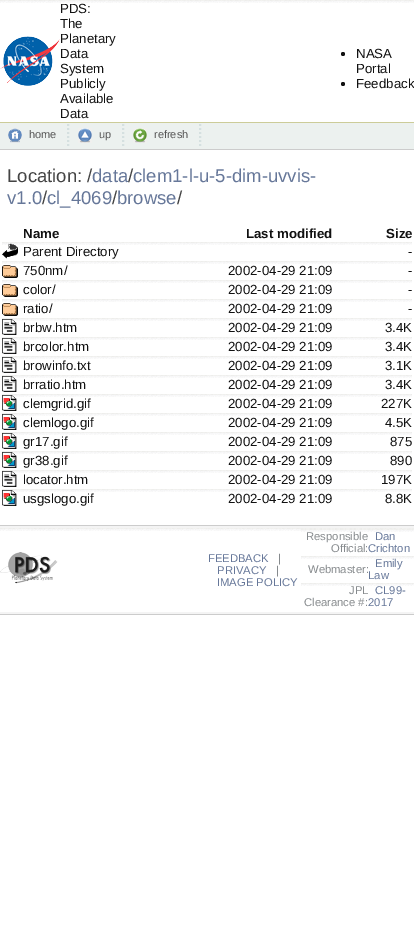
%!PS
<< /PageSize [414 951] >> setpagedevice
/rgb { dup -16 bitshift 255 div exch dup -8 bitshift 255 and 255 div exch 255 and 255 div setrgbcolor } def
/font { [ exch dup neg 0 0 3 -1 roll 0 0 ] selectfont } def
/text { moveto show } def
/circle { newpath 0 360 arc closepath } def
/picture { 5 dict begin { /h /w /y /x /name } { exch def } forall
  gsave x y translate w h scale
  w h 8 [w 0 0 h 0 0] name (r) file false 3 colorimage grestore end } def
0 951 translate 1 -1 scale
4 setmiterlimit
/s1 { /LiberationSans-Regular 13.25 font 16#111111 rgb } def
/s2 { /LiberationSans-Regular 11 font 16#555555 rgb } def
/s3 { /LiberationSans-Regular 18.5 font 16#444444 rgb } def
/s4 { /LiberationSans-Regular 18.5 font 16#667799 rgb } def
/s5 { /LiberationSans-Bold 13.25 font 16#111111 rgb } def
/s6 { /LiberationSans-Regular 11.25 font 16#667799 rgb } def
/s7 { /LiberationSans-Regular 11.25 font 16#868A8D rgb } def
16#FFFFFF rgb
0 0 414 951 rectfill
(pic1.raw) 0 0 60 3 picture
(pic2.raw) 0 36 60 50 picture
(pic3.raw) 116 0 200 3 picture
(pic4.raw) 60 0 56 3 picture
s1
(PDS:) 60 13 text
(The) 60 28 text
(Planetary) 60 43 text
(Data) 60 58 text
(System) 60 73 text
(Publicly) 60 88 text
(Available) 60 103 text
(Data) 60 118 text
(pic5.raw) 316 0 98 3 picture
16#CCCC99 rgb
0 122 414 1 rectfill
16#111111 rgb
343 54 2 circle fill
(NASA) 356 58 text
(Portal) 356 73 text
343 84 2 circle fill
(Feedback) 356 88 text
16#ECF1EF rgb
0 123 414 26 rectfill
16#CCCCCC rgb
0 149 414 1 rectfill
(pic6.raw) 8 128 14 15 picture
s2
(home) 29 138 text
16#D5E0E0 rgb
2 setlinewidth
[2 2] 0 setdash
68 124 moveto 68 147 lineto stroke
(pic7.raw) 78 128 14 15 picture
s2
(up) 99 138 text
16#D5E0E0 rgb
123 124 moveto 123 147 lineto stroke
(pic8.raw) 133 128 14 15 picture
s2
(refresh) 154 138 text
16#D5E0E0 rgb
200 124 moveto 200 147 lineto stroke
s3
(Location: /) 7 182 text
s4
(data clem1-l-u-5-dim-uvvis-) 92 182 text
s3
(/) 128 182 text
(/) 42 204 text
s4
(cl_4069 browse) 47 204 text
(v1.0) 7 204 text
s3
(/) 112 204 text
(/) 177 204 text
s5
(Name) 23 238 text
(Last modified) 246 238 text
(Size) 386 238 text
(pic9.raw) 2 242 21 3 picture
(pic10.raw) 2 243 16 16 picture
(pic11.raw) 152 242 180 3 picture
(pic12.raw) 23 242 129 3 picture
s1
(Parent Directory) 23 256 text
(pic13.raw) 332 242 80 3 picture
(-) 408 256 text
(pic9.raw) 2 261 21 3 picture
(pic14.raw) 2 265 16 13 picture
(pic12.raw) 23 261 129 3 picture
(750nm/) 23 275 text
(pic11.raw) 152 261 180 3 picture
(2002-04-29 21:09) 228 275 text
(pic13.raw) 332 261 80 3 picture
(-) 408 275 text
(pic9.raw) 2 280 21 3 picture
(pic14.raw) 2 284 16 13 picture
(pic12.raw) 23 280 129 3 picture
(color/) 23 294 text
(pic11.raw) 152 280 180 3 picture
(2002-04-29 21:09) 228 294 text
(pic13.raw) 332 280 80 3 picture
(-) 408 294 text
(pic9.raw) 2 299 21 3 picture
(pic14.raw) 2 303 16 13 picture
(pic12.raw) 23 299 129 3 picture
(ratio/) 23 313 text
(pic11.raw) 152 299 180 3 picture
(2002-04-29 21:09) 228 313 text
(pic13.raw) 332 299 80 3 picture
(-) 408 313 text
(pic9.raw) 2 318 21 3 picture
(pic15.raw) 2 319 15 16 picture
(pic12.raw) 23 318 129 3 picture
(brbw.htm) 23 332 text
(pic11.raw) 152 318 180 3 picture
(2002-04-29 21:09) 228 332 text
(pic13.raw) 332 318 80 3 picture
(3.4K) 385 332 text
(pic9.raw) 2 337 21 3 picture
(pic15.raw) 2 338 15 16 picture
(pic12.raw) 23 337 129 3 picture
(brcolor.htm) 23 351 text
(pic11.raw) 152 337 180 3 picture
(2002-04-29 21:09) 228 351 text
(pic13.raw) 332 337 80 3 picture
(3.4K) 385 351 text
(pic9.raw) 2 356 21 3 picture
(pic15.raw) 2 357 15 16 picture
(pic12.raw) 23 356 129 3 picture
(browinfo.txt) 23 370 text
(pic11.raw) 152 356 180 3 picture
(2002-04-29 21:09) 228 370 text
(pic13.raw) 332 356 80 3 picture
(3.1K) 385 370 text
(pic9.raw) 2 375 21 3 picture
(pic15.raw) 2 376 15 16 picture
(pic12.raw) 23 375 129 3 picture
(brratio.htm) 23 389 text
(pic11.raw) 152 375 180 3 picture
(2002-04-29 21:09) 228 389 text
(pic13.raw) 332 375 80 3 picture
(3.4K) 385 389 text
(pic9.raw) 2 394 21 3 picture
(pic16.raw) 2 395 15 16 picture
(pic12.raw) 23 394 129 3 picture
(clemgrid.gif) 23 408 text
(pic11.raw) 152 394 180 3 picture
(2002-04-29 21:09) 228 408 text
(pic13.raw) 332 394 80 3 picture
(227K) 381 408 text
(pic9.raw) 2 413 21 3 picture
(pic16.raw) 2 414 15 16 picture
(pic12.raw) 23 413 129 3 picture
(clemlogo.gif) 23 427 text
(pic11.raw) 152 413 180 3 picture
(2002-04-29 21:09) 228 427 text
(pic13.raw) 332 413 80 3 picture
(4.5K) 385 427 text
(pic9.raw) 2 432 21 3 picture
(pic16.raw) 2 433 15 16 picture
(pic12.raw) 23 432 129 3 picture
(gr17.gif) 23 446 text
(pic11.raw) 152 432 180 3 picture
(2002-04-29 21:09) 228 446 text
(pic13.raw) 332 432 80 3 picture
(875) 390 446 text
(pic9.raw) 2 451 21 3 picture
(pic16.raw) 2 452 15 16 picture
(pic12.raw) 23 451 129 3 picture
(gr38.gif) 23 465 text
(pic11.raw) 152 451 180 3 picture
(2002-04-29 21:09) 228 465 text
(pic13.raw) 332 451 80 3 picture
(890) 390 465 text
(pic9.raw) 2 470 21 3 picture
(pic15.raw) 2 471 15 16 picture
(pic12.raw) 23 470 129 3 picture
(locator.htm) 23 484 text
(pic11.raw) 152 470 180 3 picture
(2002-04-29 21:09) 228 484 text
(pic13.raw) 332 470 80 3 picture
(197K) 381 484 text
(pic9.raw) 2 489 21 3 picture
(pic16.raw) 2 490 15 16 picture
(pic12.raw) 23 489 129 3 picture
(usgslogo.gif) 23 503 text
(pic11.raw) 152 489 180 3 picture
(2002-04-29 21:09) 228 503 text
(pic13.raw) 332 489 80 3 picture
(8.8K) 385 503 text
16#F4F4F4 rgb
0 526 414 88 rectfill
16#CCCCCC rgb
0 525 414 1 rectfill
0 614 414 1 rectfill
16#FFFFFF rgb
0 531 301 81 rectfill
(pic17.raw) 0 528 58 3 picture
(pic18.raw) 0 552 58 32 picture
(pic19.raw) 58 528 150 3 picture
(pic20.raw) 208 528 93 3 picture
s6
(FEEDBACK) 208 562 text
s7
(|) 278 562 text
s6
(PRIVACY) 217 574 text
s7
(|) 276 574 text
s6
(IMAGE POLICY) 217 586 text
16#FFFFFF rgb
301 559 113 53 rectfill
(pic21.raw) 301 528 113 1 picture
301 532 113 24 rectfill
(pic22.raw) 301 529 67 3 picture
s7
(Responsible) 306 540 text
(Official:) 331 552 text
(pic23.raw) 368 529 46 3 picture
s6
(Dan) 375 540 text
(Crichton) 368 552 text
(pic22.raw) 301 556 67 3 picture
s7
(Webmaster:) 308 573 text
(pic23.raw) 368 556 46 3 picture
s6
(Emily) 375 567 text
(Law) 368 579 text
(pic22.raw) 301 583 67 3 picture
s7
(JPL) 349 594 text
(Clearance #:) 304 606 text
(pic23.raw) 368 583 46 3 picture
s6
(CL99-) 375 594 text
(2017) 368 606 text
showpage
